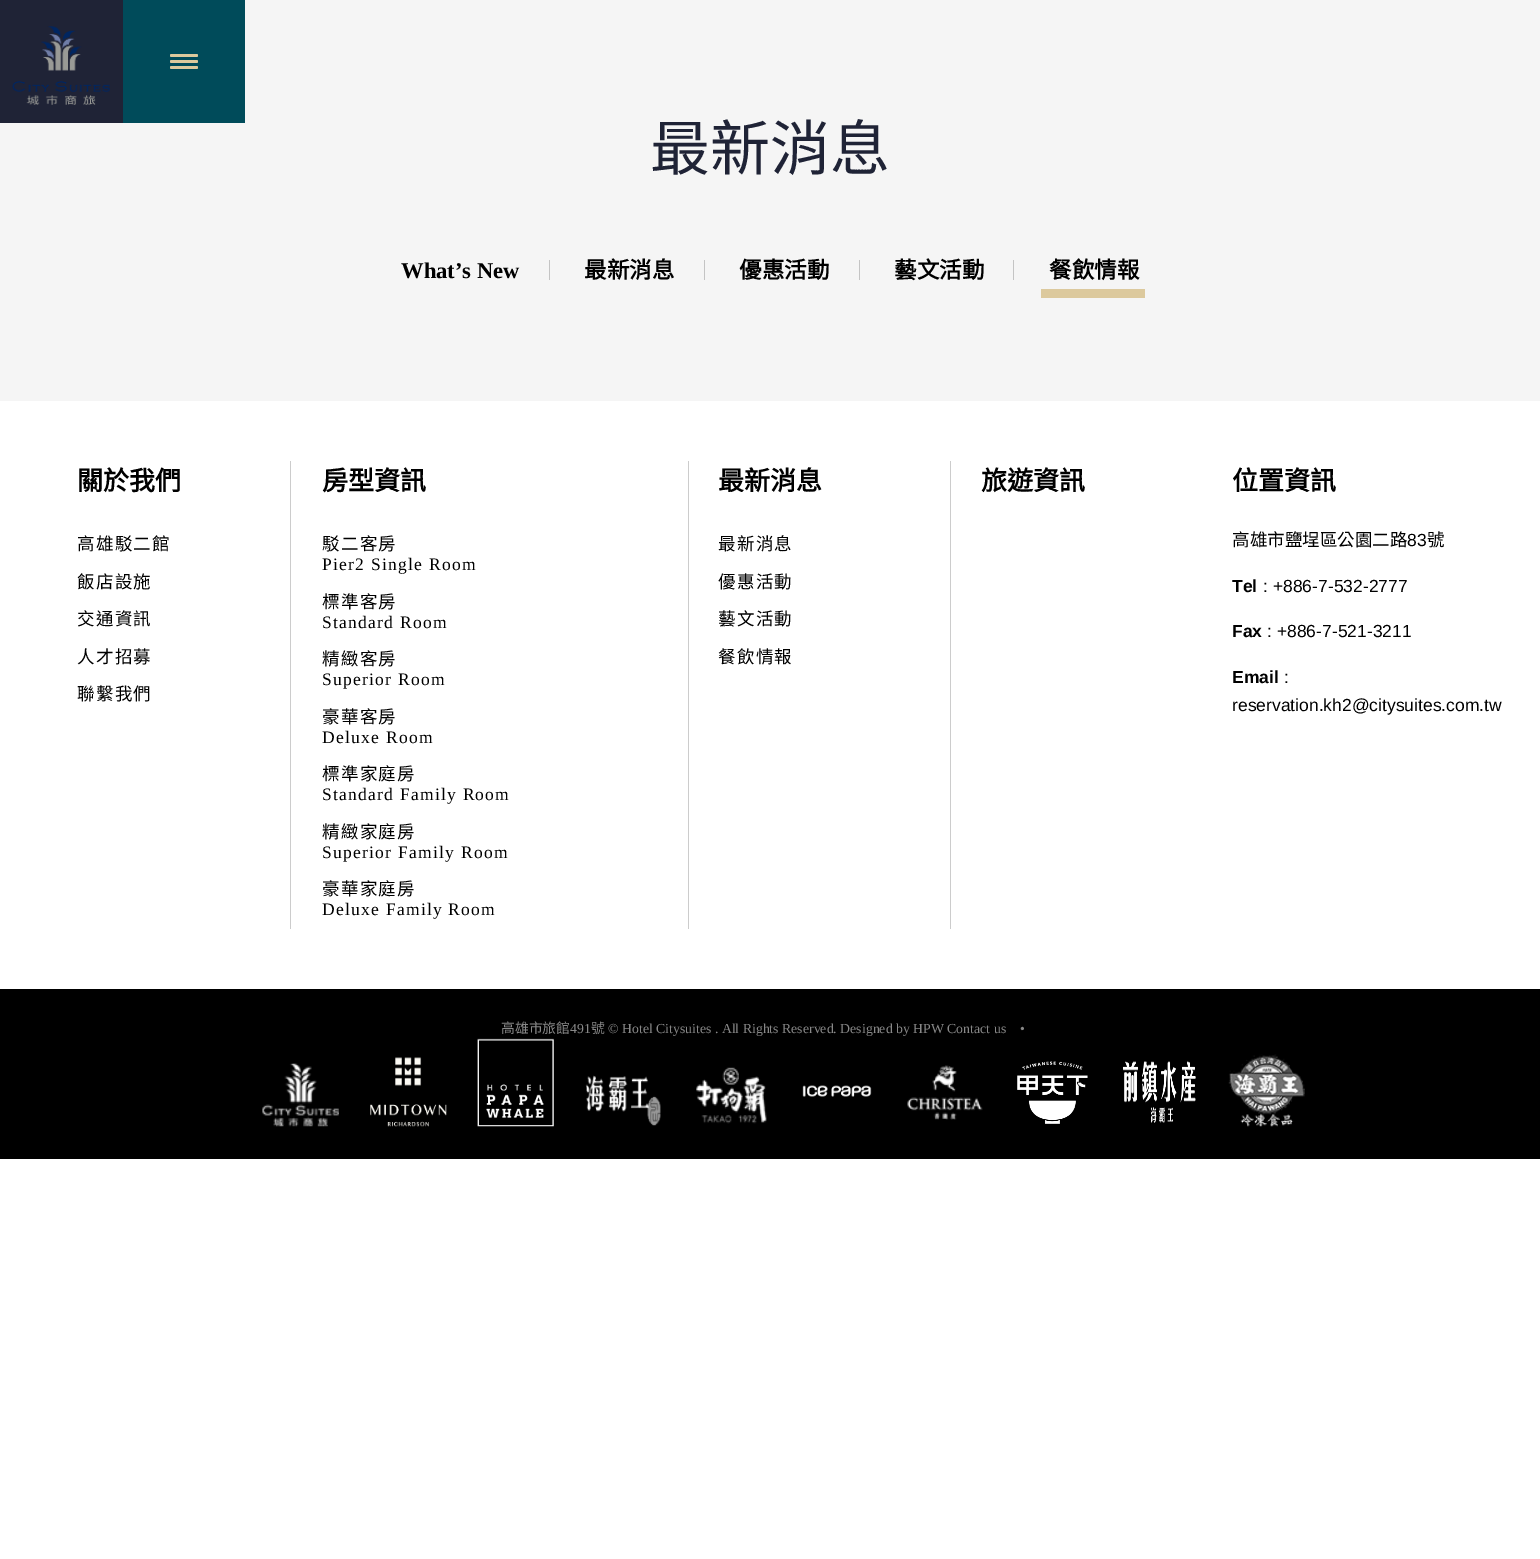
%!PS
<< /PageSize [1540 1559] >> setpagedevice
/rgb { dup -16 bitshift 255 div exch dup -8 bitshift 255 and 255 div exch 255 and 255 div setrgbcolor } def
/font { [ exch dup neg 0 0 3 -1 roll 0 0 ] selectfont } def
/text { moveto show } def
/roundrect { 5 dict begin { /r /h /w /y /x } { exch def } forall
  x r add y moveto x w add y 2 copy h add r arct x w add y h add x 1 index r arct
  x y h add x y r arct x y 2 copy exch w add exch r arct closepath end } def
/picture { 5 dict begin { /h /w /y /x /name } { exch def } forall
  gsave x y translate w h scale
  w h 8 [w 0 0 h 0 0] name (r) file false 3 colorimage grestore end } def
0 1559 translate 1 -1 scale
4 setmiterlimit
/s1 { /NotoSansCJKTC-Regular 60 font 16#1F2336 rgb } def
/s2 { /LiberationSerif-Bold 22.5 font 16#000000 rgb } def
/s3 { /NotoSansCJKTC-Bold 22.5 font 16#000000 rgb } def
/s4 { /NotoSansCJKTC-Bold 26 font 16#000000 rgb } def
/s5 { /NotoSansCJKTC-Regular 17.5 font 16#000000 rgb } def
/s6 { /LiberationSans-Regular 17.5 font 16#000000 rgb } def
/s7 { /LiberationSans-Bold 17.5 font 16#000000 rgb } def
/s8 { /NotoSansCJKTC-Regular 13.8 font 16#888888 rgb } def
/s9 { /LiberationSerif-Regular 13.8 font 16#888888 rgb } def
16#FFFFFF rgb
0 0 1540 1559 rectfill
16#F5F5F5 rgb
0 0 1540 401 rectfill
16#1F2336 rgb
0 0 123 123 rectfill
(pic1.raw) 12 26 98 79 picture
16#004B5A rgb
123 0 122 123 rectfill
16#DCC99D rgb
170 60 28 3 1.5 roundrect fill
170 54 28 3 1.5 roundrect fill
170 66 28 3 1.5 roundrect fill
s1
(最新消息) 650 170 text
16#C4C4C4 rgb
549 260 1 20 rectfill
s2
(What’s New) 401 278 text
16#C4C4C4 rgb
704 260 1 20 rectfill
s3
(最新消息) 584 278 text
16#C4C4C4 rgb
859 260 1 20 rectfill
s3
(優惠活動) 739 278 text
16#C4C4C4 rgb
1013 260 1 20 rectfill
s3
(藝文活動) 894 278 text
(餐飲情報) 1049 278 text
16#DCC99D rgb
1041 289 104 9 rectfill
16#CCCCCC rgb
290 461 1 468 rectfill
s4
(關於我們) 77 490 text
/NotoSansCJKTC-Regular 17.5 font
77 550 moveto 1.25 0 (高雄駁二館) ashow
77 588 moveto 1.25 0 (飯店設施) ashow
77 625 moveto 1.25 0 (交通資訊) ashow
77 663 moveto 1.25 0 (人才招募) ashow
77 700 moveto 1.25 0 (聯繫我們) ashow
16#CCCCCC rgb
688 461 1 468 rectfill
s4
(房型資訊) 322 490 text
/NotoSansCJKTC-Regular 17.5 font
322 550 moveto 1.25 0 (駁二客房) ashow
/LiberationSerif-Regular 17.5 font
322 570 moveto 1.25 0 (Pier2 Single Room) ashow
/NotoSansCJKTC-Regular 17.5 font
322 608 moveto 1.25 0 (標準客房) ashow
/LiberationSerif-Regular 17.5 font
322 628 moveto 1.25 0 (Standard Room) ashow
/NotoSansCJKTC-Regular 17.5 font
322 665 moveto 1.25 0 (精緻客房) ashow
/LiberationSerif-Regular 17.5 font
322 685 moveto 1.25 0 (Superior Room) ashow
/NotoSansCJKTC-Regular 17.5 font
322 723 moveto 1.25 0 (豪華客房) ashow
/LiberationSerif-Regular 17.5 font
322 743 moveto 1.25 0 (Deluxe Room) ashow
/NotoSansCJKTC-Regular 17.5 font
322 780 moveto 1.25 0 (標準家庭房) ashow
/LiberationSerif-Regular 17.5 font
322 800 moveto 1.25 0 (Standard Family Room) ashow
/NotoSansCJKTC-Regular 17.5 font
322 838 moveto 1.25 0 (精緻家庭房) ashow
/LiberationSerif-Regular 17.5 font
322 858 moveto 1.25 0 (Superior Family Room) ashow
/NotoSansCJKTC-Regular 17.5 font
322 895 moveto 1.25 0 (豪華家庭房) ashow
/LiberationSerif-Regular 17.5 font
322 915 moveto 1.25 0 (Deluxe Family Room) ashow
16#CCCCCC rgb
950 461 1 468 rectfill
s4
(最新消息) 718 490 text
/NotoSansCJKTC-Regular 17.5 font
718 550 moveto 1.25 0 (最新消息) ashow
718 588 moveto 1.25 0 (優惠活動) ashow
718 625 moveto 1.25 0 (藝文活動) ashow
718 663 moveto 1.25 0 (餐飲情報) ashow
s4
(旅遊資訊) 981 490 text
(位置資訊) 1232 490 text
s5
(高雄市鹽埕區公園二路) 1232 546 text
s6
(83) 1407 546 text
s5
(號) 1427 546 text
s7
(Tel) 1232 592 text
s6
(: +886-7-532-2777) 1263 592 text
s7
(Fax) 1232 637 text
s6
(: +886-7-521-3211) 1267 637 text
s7
(Email) 1232 683 text
s6
(:) 1284 683 text
(reservation.kh2@citysuites.com.tw) 1232 711 text
0 989 1540 170 rectfill
s8
(高雄市旅館) 501 1033 text
s9
(491) 570 1033 text
s8
(號) 591 1033 text
s9
(© Hotel Citysuites . All Rights Reserved. Designed by HPW Contact us) 608 1033 text
(•) 1020 1033 text
(pic2.raw) 262 1063 77 64 picture
(pic3.raw) 370 1057 77 70 picture
(pic4.raw) 477 1038 77 89 picture
(pic5.raw) 585 1075 76 51 picture
(pic6.raw) 696 1067 71 57 picture
(pic7.raw) 802 1085 70 12 picture
(pic8.raw) 907 1065 76 55 picture
(pic9.raw) 1017 1061 71 63 picture
(pic10.raw) 1123 1061 73 62 picture
(pic11.raw) 1228 1054 77 73 picture
showpage
